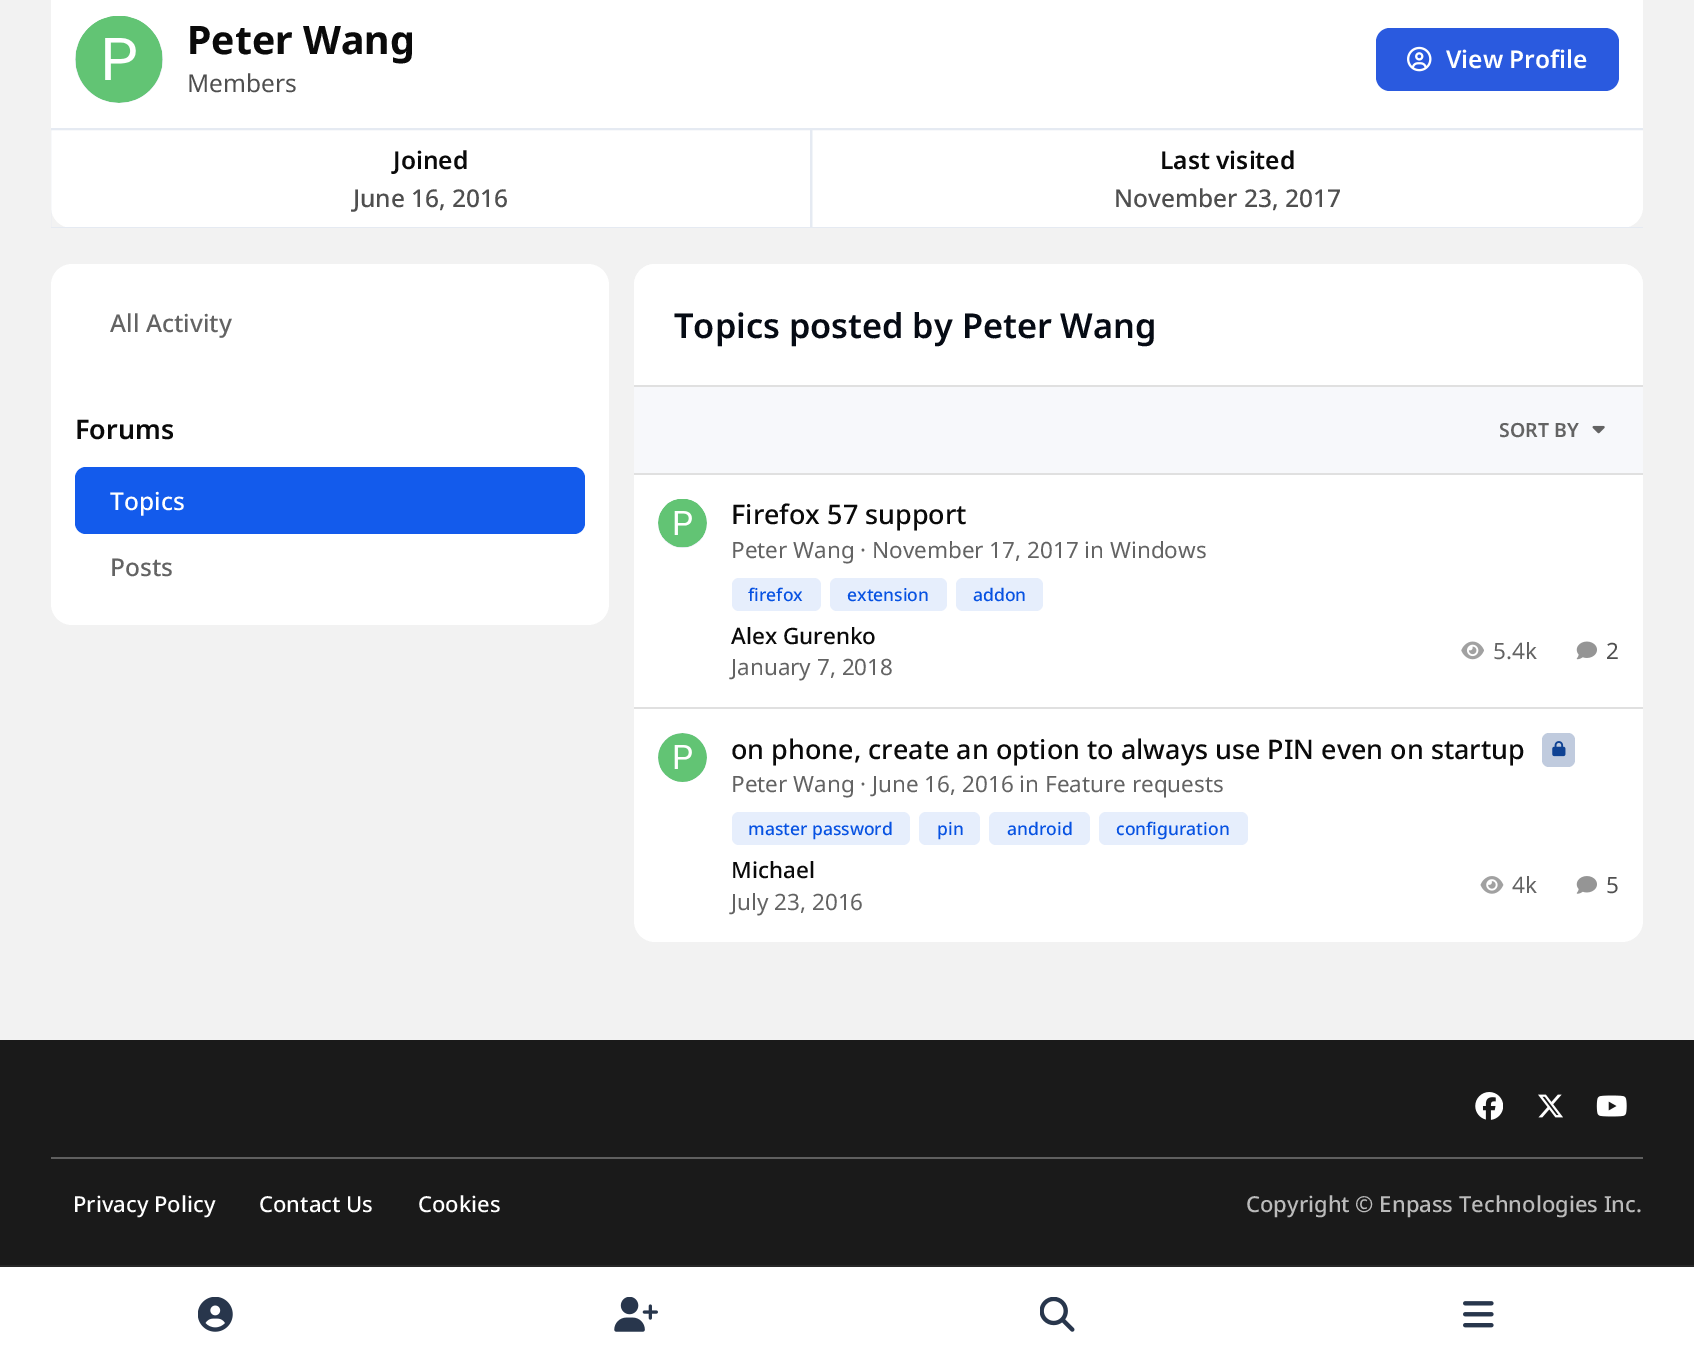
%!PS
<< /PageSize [1694 1363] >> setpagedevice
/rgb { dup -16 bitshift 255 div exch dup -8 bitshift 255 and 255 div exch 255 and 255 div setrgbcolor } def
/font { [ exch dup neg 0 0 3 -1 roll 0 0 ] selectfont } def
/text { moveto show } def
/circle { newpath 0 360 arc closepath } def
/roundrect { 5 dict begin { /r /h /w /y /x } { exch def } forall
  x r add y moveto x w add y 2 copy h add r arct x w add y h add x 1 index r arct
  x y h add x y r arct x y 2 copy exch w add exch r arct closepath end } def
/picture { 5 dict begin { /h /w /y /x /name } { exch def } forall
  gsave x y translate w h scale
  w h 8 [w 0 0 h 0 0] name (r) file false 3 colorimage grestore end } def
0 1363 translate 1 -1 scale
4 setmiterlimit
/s1 { /NotoSans-Bold 39.25 font 16#0A0A0A rgb } def
/s2 { /NotoSans-Regular 24.5 font 16#4F4F4F rgb } def
/s3 { /NotoSans-SemiBold 24.5 font 16#FFFFFF rgb } def
/s4 { /NotoSans-SemiBold 24.5 font 16#0A0A0A rgb } def
/s5 { /NotoSans-Medium 24.5 font 16#4F4F4F rgb } def
/s6 { /NotoSans-Medium 24.5 font 16#636363 rgb } def
/s7 { /NotoSans-SemiBold 26.95 font 16#0A0A0A rgb } def
/s8 { /NotoSans-Medium 24.5 font 16#FFFFFF rgb } def
/s9 { /NotoSans-SemiBold 34.25 font 16#060B14 rgb } def
/s10 { /NotoSans-SemiBold 19.5 font 16#636363 rgb } def
/s11 { /NotoSans-Medium 26.95 font 16#0A0A0A rgb } def
/s12 { /NotoSans-Regular 22.5 font 16#636363 rgb } def
/s13 { /NotoSans-Medium 17.5 font 16#0752E2 rgb } def
/s14 { /NotoSans-Medium 22.5 font 16#0A0A0A rgb } def
/s15 { /NotoSans-Regular 22.5 font 16#4F4F4F rgb } def
/s16 { /NotoSans-Medium 22 font 16#FFFFFF rgb } def
/s17 { /NotoSans-Medium 22 font 16#BBBBBB rgb } def
16#F2F2F2 rgb
0 0 1694 1363 rectfill
16#FFFFFF rgb
51 -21 1592 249 21 roundrect fill
16#E5EAF2 rgb
75 16 88 87 43.5 roundrect fill
(pic1.raw) 75 16 88 87 picture
s1
(Peter Wang) 187 54 text
s2
(Members) 187 92 text
16#2A5ADF rgb
1376 28 243 63 14 roundrect fill
(pic2.raw) 1407 46 25 26 picture
s3
(View Profile) 1446 68 text
16#E5EAF2 rgb
51 128 1592 2 rectfill
gsave
51 130 1592 98 rectclip
2 setlinewidth
50 129 761 99 rectstroke
grestore
s4
(Joined) 393 169 text
s5
(June 16, 2016) 353 207 text
gsave
51 130 1592 98 rectclip
16#E5EAF2 rgb
2 setlinewidth
811 129 833 99 rectstroke
grestore
s4
(Last visited) 1160 169 text
s5
(November 23, 2017) 1114 207 text
16#FFFFFF rgb
51 264 558 361 21 roundrect fill
s6
(All Activity) 110 332 text
s7
(Forums) 75 439 text
16#135BEC rgb
75 467 510 67 11 roundrect fill
s8
(Topics) 110 510 text
s6
(Posts) 110 576 text
16#FFFFFF rgb
634 264 1009 678 21 roundrect fill
655 264 moveto 1622 264 lineto 1633.5 264 1643 273.5 1643 285 curveto 1643 387 lineto 634 387 lineto 634 285 lineto 634 273.5 643.5 264 655 264 curveto closepath fill
16#E0E0E0 rgb
634 385 1009 2 rectfill
s9
(Topics posted by Peter Wang) 674 338 text
16#F7F8FB rgb
634 387 1009 86 rectfill
16#E0E0E0 rgb
634 473 1009 2 rectfill
s10
(SORT BY) 1499 437 text
(pic3.raw) 1592 425 13 9 picture
16#E0E0E0 rgb
634 707 1009 2 rectfill
16#E5EAF2 rgb
682.5 523.5 24.5 circle fill
(pic4.raw) 658 499 49 49 picture
s11
(Firefox 57 support) 731 524 text
s12
(Peter Wang) 731 558 text
(· November 17, 2017 in Windows) 860 558 text
16#E6EEFC rgb
732 578 89 33 7 roundrect fill
s13
(firefox) 748 601 text
16#E6EEFC rgb
830 578 117 33 7 roundrect fill
s13
(extension) 847 601 text
16#E6EEFC rgb
956 578 87 33 7 roundrect fill
s13
(addon) 973 601 text
s14
(Alex Gurenko) 731 644 text
s12
(January 7, 2018) 731 675 text
(pic5.raw) 1461 641 23 19 picture
(5.4k) 1493 659 text
(pic6.raw) 1576 641 21 19 picture
s15
(2) 1606 659 text
16#E5EAF2 rgb
682.5 757.5 24.5 circle fill
(pic7.raw) 658 733 49 49 picture
s11
(on phone, create an option to always use PIN even on startup) 731 759 text
16#C0CBDE rgb
1542 733 33 34 7 roundrect fill
(pic8.raw) 1552 741 14 16 picture
s12
(Peter Wang) 731 792 text
(· June 16, 2016 in Feature requests) 860 792 text
16#E6EEFC rgb
732 812 178 33 7 roundrect fill
s13
(master password) 748 835 text
16#E6EEFC rgb
919 812 61 33 7 roundrect fill
s13
(pin) 937 835 text
16#E6EEFC rgb
989 812 101 33 7 roundrect fill
s13
(android) 1007 835 text
16#E6EEFC rgb
1099 812 149 33 7 roundrect fill
s13
(configuration) 1116 835 text
s14
(Michael) 731 878 text
s12
(July 23, 2016) 731 910 text
(pic9.raw) 1480 876 24 18 picture
(4k) 1512 893 text
(pic10.raw) 1576 876 21 18 picture
s15
(5) 1606 893 text
16#1A1A1A rgb
0 1040 1694 225 rectfill
(pic11.raw) 1475 1092 28 28 picture
(pic12.raw) 1538 1094 25 24 picture
(pic13.raw) 1596 1095 31 22 picture
16#5F5F5F rgb
51 1157 1592 2 rectfill
s16
(Privacy Policy) 73 1212 text
(Contact Us) 259 1212 text
(Cookies) 418 1212 text
s17
(Copyright © Enpass Technologies Inc.) 1246 1212 text
16#272727 rgb
0 1265 1694 2 rectfill
16#FFFFFF rgb
0 1267 1694 96 rectfill
(pic14.raw) 198 1297 35 35 picture
(pic15.raw) 614 1297 44 35 picture
(pic16.raw) 1040 1297 35 35 picture
(pic17.raw) 1463 1301 31 27 picture
showpage
